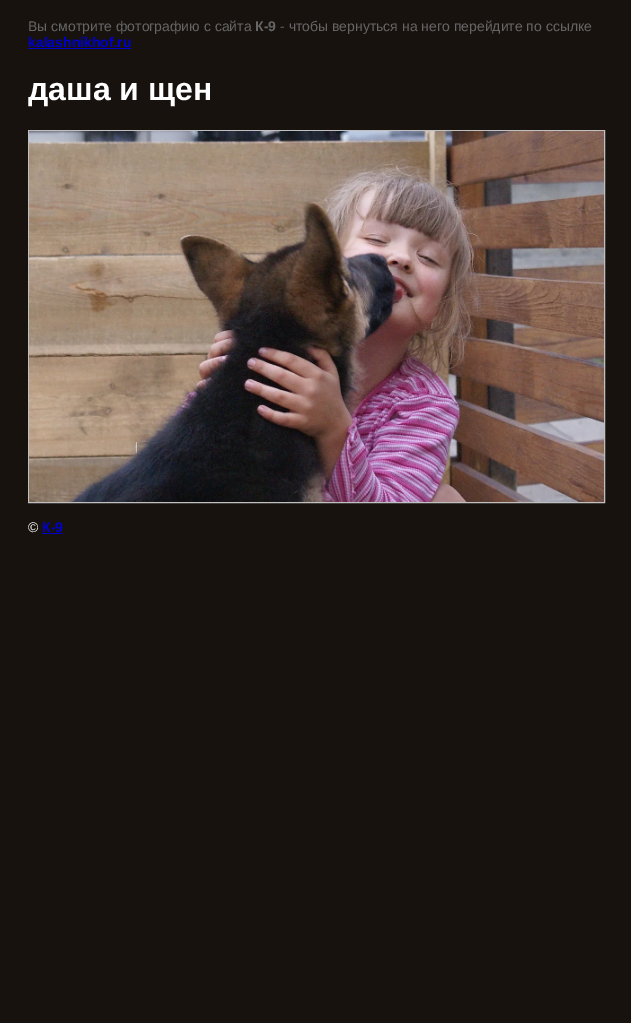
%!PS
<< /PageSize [631 1023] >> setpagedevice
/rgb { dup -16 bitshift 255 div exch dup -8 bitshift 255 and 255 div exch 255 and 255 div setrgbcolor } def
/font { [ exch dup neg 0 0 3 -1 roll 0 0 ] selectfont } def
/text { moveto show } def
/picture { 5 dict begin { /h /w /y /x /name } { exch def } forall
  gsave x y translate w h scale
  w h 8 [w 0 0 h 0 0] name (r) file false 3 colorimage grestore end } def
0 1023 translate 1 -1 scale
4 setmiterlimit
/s1 { /LiberationSans-Regular 14 font 16#666666 rgb } def
/s2 { /LiberationSans-Bold 14 font 16#666666 rgb } def
/s3 { /LiberationSans-Bold 14 font 16#0000CC rgb } def
/s4 { /LiberationSans-Bold 32 font 16#FFFFFF rgb } def
/s5 { /LiberationSans-Regular 14 font 16#FFFFFF rgb } def
16#17120E rgb
0 0 631 1023 rectfill
s1
(Вы смотрите фотографию с сайта) 28 31 text
s2
(К-9) 255 31 text
s1
(- чтобы вернуться на него перейдите по ссылке) 280 31 text
s3
(kalashnikhof.ru) 28 47 text
28 48 103 1 rectfill
s4
(даша и щен) 28 100 text
16#C0C0C0 rgb
28.5 130.5 576 372 rectstroke
(pic1.raw) 29 131 575 371 picture
s5
(©) 28 532 text
s3
(К-9) 42 532 text
42 533 21 1 rectfill
showpage
